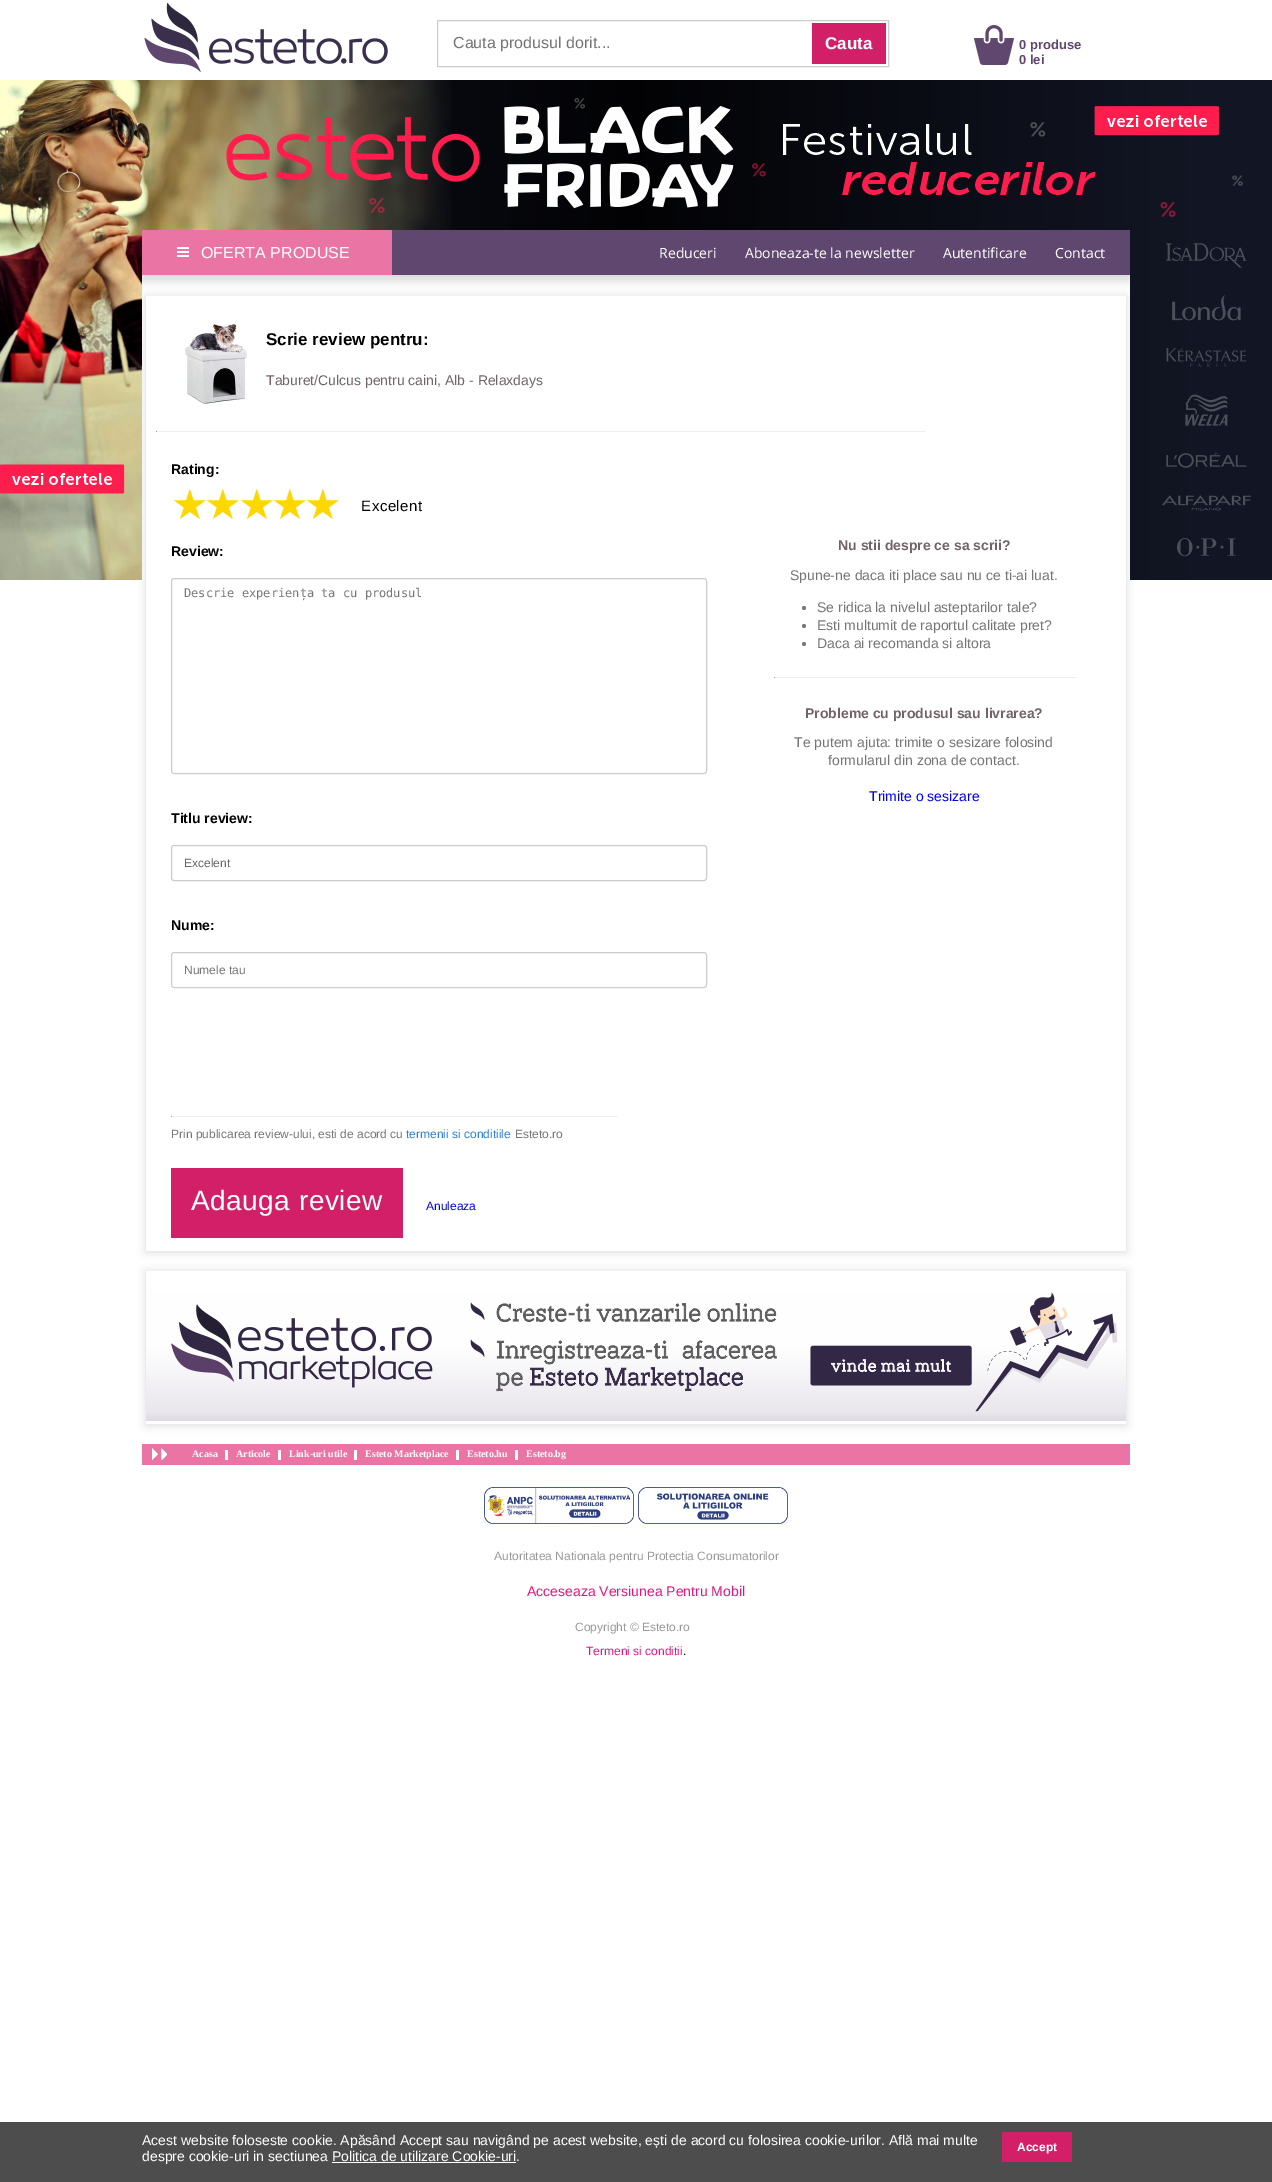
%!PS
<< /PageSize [1272 2182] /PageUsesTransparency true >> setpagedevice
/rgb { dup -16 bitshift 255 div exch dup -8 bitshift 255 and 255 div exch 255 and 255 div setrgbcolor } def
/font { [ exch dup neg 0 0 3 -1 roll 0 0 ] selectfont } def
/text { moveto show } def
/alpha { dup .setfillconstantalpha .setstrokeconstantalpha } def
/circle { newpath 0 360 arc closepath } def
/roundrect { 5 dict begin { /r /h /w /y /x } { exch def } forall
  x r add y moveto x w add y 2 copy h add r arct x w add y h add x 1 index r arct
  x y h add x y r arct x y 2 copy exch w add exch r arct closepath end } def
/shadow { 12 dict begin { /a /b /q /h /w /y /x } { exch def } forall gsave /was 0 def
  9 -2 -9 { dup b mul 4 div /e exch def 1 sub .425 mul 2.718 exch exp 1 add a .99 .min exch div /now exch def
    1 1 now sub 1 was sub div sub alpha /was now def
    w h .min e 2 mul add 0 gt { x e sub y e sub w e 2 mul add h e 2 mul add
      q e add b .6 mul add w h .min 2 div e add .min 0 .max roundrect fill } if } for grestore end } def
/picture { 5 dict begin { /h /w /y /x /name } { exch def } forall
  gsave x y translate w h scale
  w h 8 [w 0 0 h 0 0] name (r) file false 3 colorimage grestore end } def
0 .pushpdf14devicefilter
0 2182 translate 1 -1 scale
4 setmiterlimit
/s1 { /LiberationSans-Regular 16 font 16#757575 rgb } def
/s2 { /LiberationSans-Bold 17 font 16#FFFFFF rgb } def
/s3 { /LiberationSans-Bold 13 font 16#60476F rgb } def
/s4 { /LiberationSans-Regular 16 font 16#FFFFFF rgb } def
/s5 { /OpenSans-Regular 14 font 16#FFFFFF rgb } def
/s6 { /LiberationSans-Bold 17 font 16#000000 rgb } def
/s7 { /LiberationSans-Regular 14 font 16#716369 rgb } def
/s8 { /LiberationSans-Bold 14 font 16#000000 rgb } def
/s9 { /DejaVuSans-Regular 42 font 16#FFD700 rgb } def
/s10 { /DejaVuSansMono-Regular 12 font 16#757575 rgb } def
/s11 { /LiberationSans-Regular 12 font 16#666666 rgb } def
/s12 { /LiberationSans-Regular 12 font 16#757575 rgb } def
/s13 { /LiberationSans-Regular 12 font 16#2B80D5 rgb } def
/s14 { /LiberationSans-Regular 12 font 16#0000EE rgb } def
/s15 { /LiberationSans-Bold 14 font 16#716369 rgb } def
/s16 { /LiberationSans-Regular 14 font 16#757575 rgb } def
/s17 { /LiberationSans-Regular 14 font 16#0000EE rgb } def
/s18 { /LiberationSerif-Bold 10 font 16#FFFFFF rgb } def
/s19 { /LiberationSans-Regular 12 font 16#999999 rgb } def
/s20 { /LiberationSans-Regular 14 font 16#EB147F rgb } def
/s21 { /LiberationSans-Regular 12 font 16#EB147F rgb } def
/s22 { /LiberationSans-Regular 12 font 16#000000 rgb } def
/s23 { /LiberationSans-Regular 14 font 16#FFFFFF rgb } def
/s24 { /LiberationSans-Bold 12 font 16#FFFFFF rgb } def
16#FFFFFF rgb
0 0 1272 2182 rectfill
(pic1.raw) 144 3 244 69 picture
16#CCCCCC rgb
437.5 20.5 451 46 rectstroke
s1
(Cauta produsul dorit...) 453 48 text
16#D21F68 rgb
812 23 74 41 rectfill
s2
(Cauta) 825 49 text
(pic2.raw) 974 25 40 40 picture
s3
(0 produse) 1019 49 text
(0 lei) 1019 64 text
16#000000 rgb
142 235 988 46 0 5 0.15 shadow
gsave
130 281 moveto 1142 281 lineto 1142 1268 lineto 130 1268 lineto closepath 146 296 moveto 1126 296 lineto 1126 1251 lineto 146 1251 lineto closepath eoclip newpath
146 297 980 955 0 5 0.15 shadow
grestore
(pic3.raw) 0 80 142 500 picture
(pic4.raw) 142 80 988 150 picture
(pic5.raw) 1130 80 142 500 picture
16#60476F rgb
392 230 738 45 rectfill
16#D2E0ED rgb
142 275 988 1 rectfill
16#EA75A4 rgb
142 230 250 45 rectfill
16#FFFFFF rgb
177 251 12 2 rectfill
177 247 12 2 rectfill
177 255 12 2 rectfill
s4
(OFERTA PRODUSE) 201 258 text
s5
(Reduceri) 659 258 text
(Aboneaza-te la newsletter) 745 258 text
(Autentificare) 943 258 text
(Contact) 1055 258 text
(pic6.raw) 184 324 63 80 picture
s6
(Scrie review pentru:) 266 345 text
s7
(Taburet/Culcus pentru caini, Alb - Relaxdays) 266 385 text
16#EEEEEE rgb
156 431 770 1 rectfill
16#9F9F9F rgb
156 431 1 1 rectfill
s8
(Rating:) 171 474 text
s9
(★) 171 519 text
(★) 204 519 text
(★) 238 519 text
(★) 271 519 text
(★) 304 519 text
/LiberationSans-Regular 15 font
16#000000 rgb
361 511 moveto 0.5 0 (Excelent) ashow
s8
(Review:) 171 556 text
16#CCCCCC rgb
171.5 578.5 535 195 2.5 roundrect stroke
s10
(Descrie experiența ta cu produsul) 184 597 text
s8
(Titlu review:) 171 823 text
16#CCCCCC rgb
171.5 845.5 535 35 2.5 roundrect stroke
s11
(Excelent) 184 867 text
s8
(Nume:) 171 930 text
16#CCCCCC rgb
171.5 952.5 535 35 2.5 roundrect stroke
s12
(Numele tau) 184 974 text
16#EEEEEE rgb
171 1116 447 1 rectfill
16#9F9F9F rgb
171 1116 1 1 rectfill
s12
(Prin publicarea review-ului, esti de acord cu) 171 1138 text
s13
(termenii si conditiile) 406 1138 text
s12
(Esteto.ro) 515 1138 text
16#D21F68 rgb
171 1168 232 70 rectfill
/LiberationSans-Regular 28 font
16#FFFFFF rgb
191 1210 moveto 0.5 0 (Adauga review) ashow
s14
(Anuleaza) 426 1210 text
s15
(Nu stii despre ce sa scrii?) 838 550 text
s16
(Spune-ne daca iti place sau nu ce ti-ai luat.) 790 580 text
16#7A7A7A rgb
804 608 2 circle fill
s16
(Se ridica la nivelul asteptarilor tale?) 817 612 text
16#7A7A7A rgb
804 626 2 circle fill
s16
(Esti multumit de raportul calitate pret?) 817 630 text
16#7A7A7A rgb
804 644 2 circle fill
s16
(Daca ai recomanda si altora) 817 648 text
16#EEEEEE rgb
774 677 302 1 rectfill
16#9F9F9F rgb
774 677 1 1 rectfill
s15
(Probleme cu produsul sau livrarea?) 805 718 text
s16
(Te putem ajuta: trimite o sesizare folosind) 794 747 text
(formularul din zona de contact.) 828 765 text
s17
(Trimite o sesizare) 869 801 text
gsave
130 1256 moveto 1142 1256 lineto 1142 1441 lineto 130 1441 lineto closepath 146 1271 moveto 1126 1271 lineto 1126 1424 lineto 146 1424 lineto closepath eoclip newpath
16#000000 rgb
146 1272 980 153 0 5 0.15 shadow
grestore
(pic7.raw) 146 1292 980 129 picture
16#EA75A4 rgb
142 1444 988 21 rectfill
(pic8.raw) 152 1448 15 12 picture
s18
(Acasa) 192 1457 text
(Articole) 236 1457 text
225 1450 3 10 rectfill
(Link-uri utile) 289 1457 text
278 1450 3 10 rectfill
(Esteto Marketplace) 365 1457 text
354 1450 3 10 rectfill
(Esteto.hu) 467 1457 text
456 1450 3 10 rectfill
(Esteto.bg) 526 1457 text
515 1450 3 10 rectfill
(pic9.raw) 484 1487 150 37 picture
(pic10.raw) 638 1487 150 37 picture
s19
(Autoritatea Nationala pentru Protectia Consumatorilor) 494 1560 text
s20
(Acceseaza Versiunea Pentru Mobil) 527 1596 text
s19
(Copyright © Esteto.ro) 575 1631 text
s21
(Termeni si conditii) 586 1655 text
s22
(.) 683 1655 text
16#4D4D4D rgb
0 2122 1272 60 rectfill
s23
(Acest website foloseste cookie. Apăsând Accept sau navigând pe acest website, ești de acord cu folosirea cookie-urilor. Află mai multe) 142 2145 text
(despre cookie-uri in sectiunea Politica de utilizare Cookie-uri.) 142 2161 text
332 2162 184 1 rectfill
16#D21F68 rgb
1002 2132 70 30 rectfill
s24
(Accept) 1017 2151 text
.poppdf14devicefilter showpage
